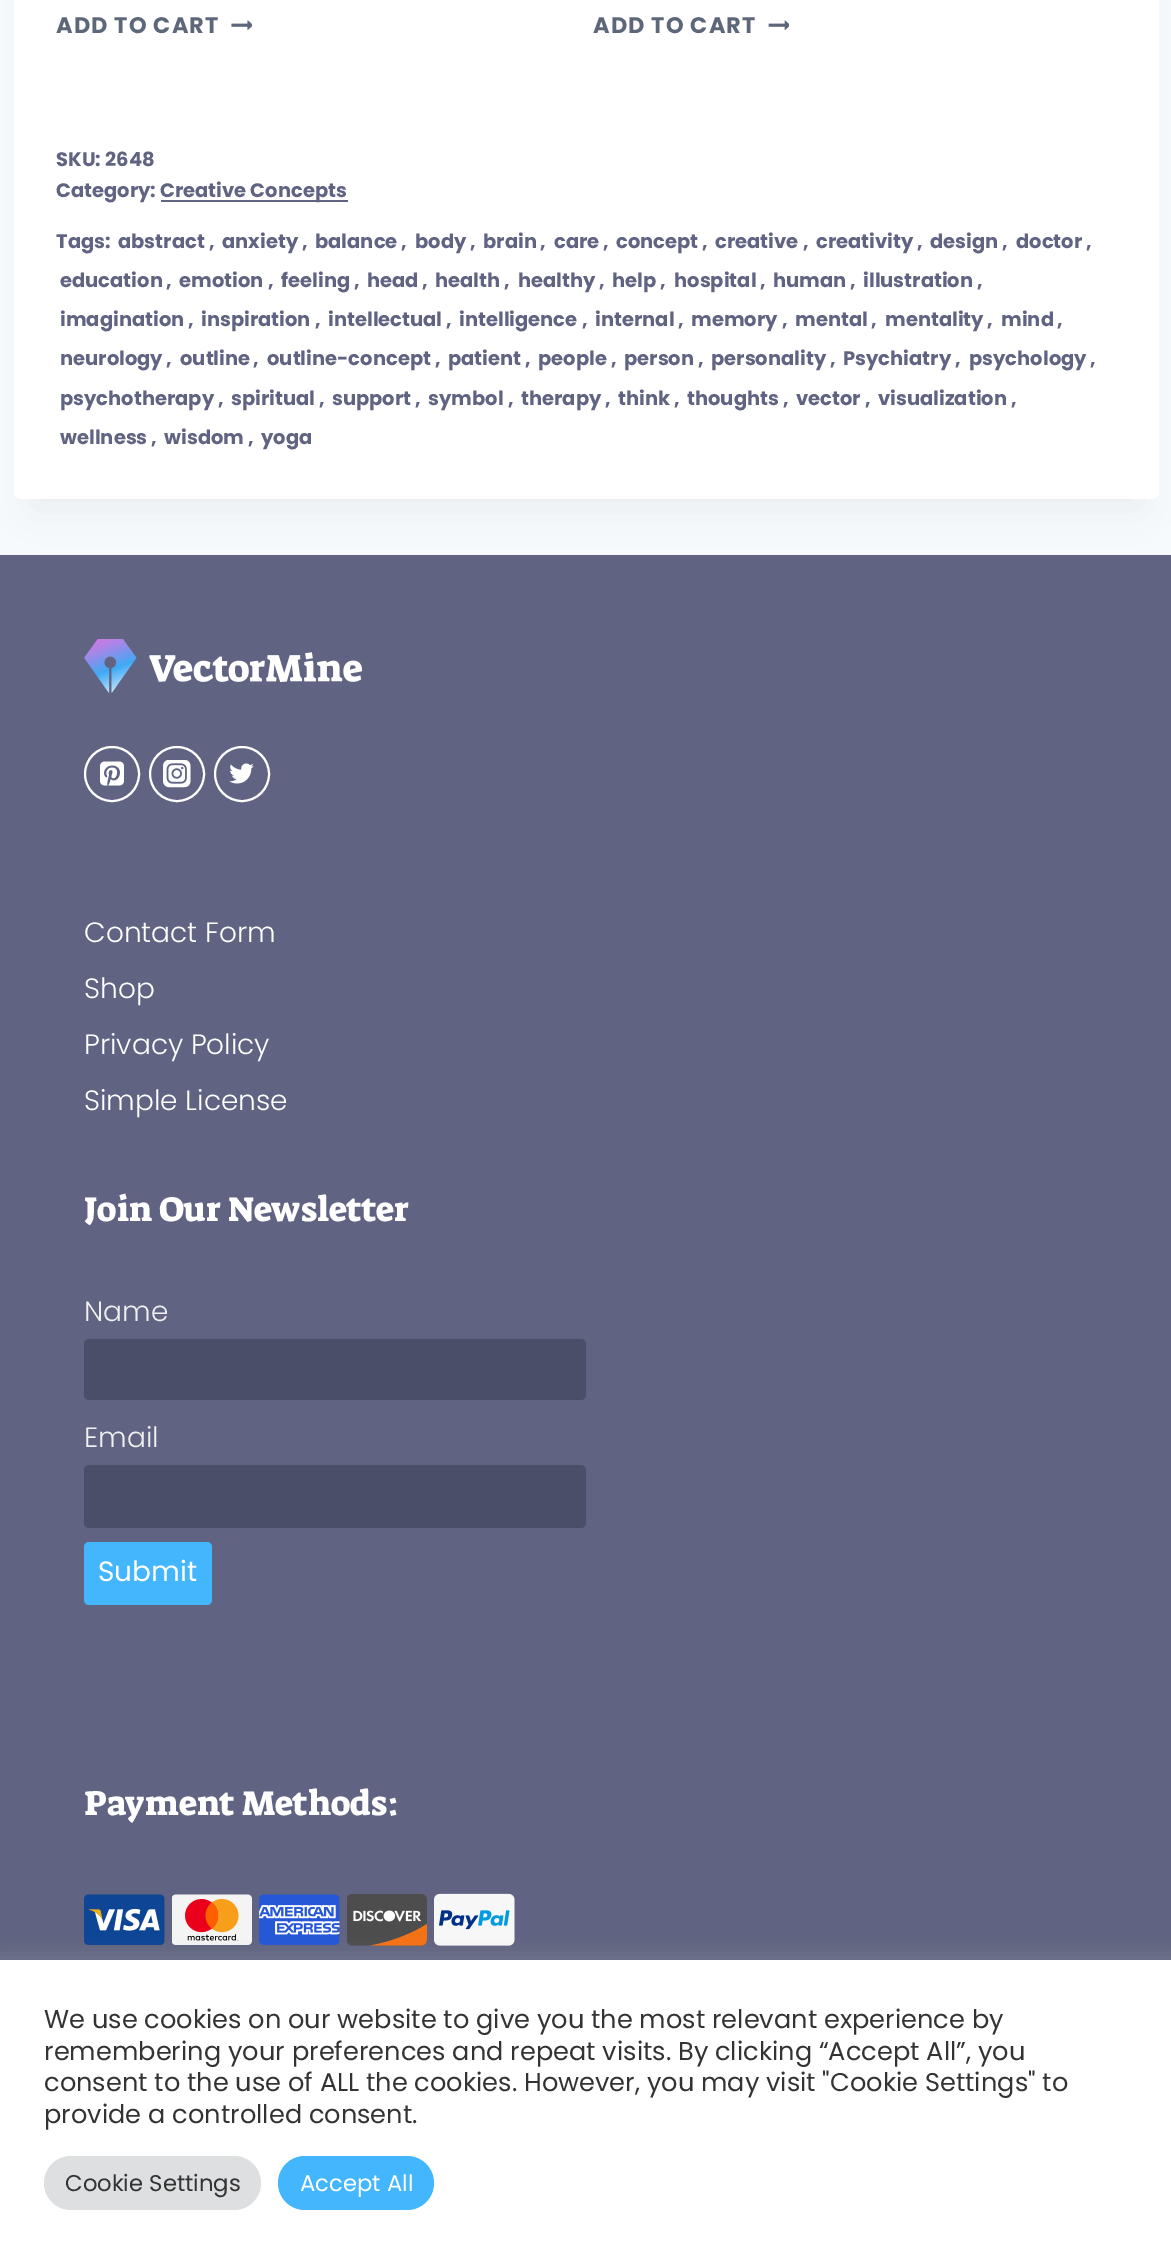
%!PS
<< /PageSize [1171 2262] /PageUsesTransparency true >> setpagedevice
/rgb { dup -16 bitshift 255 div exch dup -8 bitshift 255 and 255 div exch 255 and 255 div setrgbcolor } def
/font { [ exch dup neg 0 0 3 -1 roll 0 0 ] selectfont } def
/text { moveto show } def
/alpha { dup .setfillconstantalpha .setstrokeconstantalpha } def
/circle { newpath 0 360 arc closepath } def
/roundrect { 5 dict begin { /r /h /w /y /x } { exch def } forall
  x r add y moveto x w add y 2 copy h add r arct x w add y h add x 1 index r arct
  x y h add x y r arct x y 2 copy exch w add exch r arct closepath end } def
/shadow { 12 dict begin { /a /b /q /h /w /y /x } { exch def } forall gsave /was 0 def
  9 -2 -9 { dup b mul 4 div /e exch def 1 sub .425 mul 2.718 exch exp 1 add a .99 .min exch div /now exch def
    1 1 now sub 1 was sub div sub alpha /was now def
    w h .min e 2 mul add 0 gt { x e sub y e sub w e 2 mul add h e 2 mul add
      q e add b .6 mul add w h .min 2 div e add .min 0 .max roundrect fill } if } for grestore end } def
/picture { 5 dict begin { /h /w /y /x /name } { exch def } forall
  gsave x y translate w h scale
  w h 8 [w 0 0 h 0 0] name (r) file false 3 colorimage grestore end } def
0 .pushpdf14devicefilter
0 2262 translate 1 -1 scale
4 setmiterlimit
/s1 { /Poppins-Bold 19.5 font 16#606482 rgb } def
/s2 { /Poppins-Light 28 font 16#FFFFFF rgb } def
/s3 { /SuezOne-Regular 35 font 16#FFFFFF rgb } def
/s4 { /Poppins-Light 28 font 16#F0F0F0 rgb } def
/s5 { /Poppins-Regular 28 font 16#FFFFFF rgb } def
/s6 { /Poppins-Regular 25.65 font 16#333333 rgb } def
/s7 { /Poppins-Regular 22.75 font 16#333333 rgb } def
/s8 { /Poppins-Regular 22.75 font 16#FFFFFF rgb } def
16#F7FAFC rgb
0 0 1171 2262 rectfill
16#606482 rgb
0 555 1171 1405 rectfill
16#000000 rgb
32 -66 1109 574 0 22 0.05 shadow
16#FFFFFF rgb
14 -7 1145 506 7 roundrect fill
/Poppins-Bold 22.5 font
16#5D677A rgb
56 33 moveto 1.1 0 (ADD TO CART) ashow
(pic1.raw) 231 20 21 10 picture
593 33 moveto 1.1 0 (ADD TO CART) ashow
(pic2.raw) 768 20 21 10 picture
s1
(SKU: 2648) 56 166 text
(Category:) 56 197 text
161 200 187 2 rectfill
(Creative Concepts) 160 197 text
(Tags:) 56 248 text
(abstract) 118 248 text
(,) 209 248 text
(anxiety) 222 248 text
(,) 302 248 text
(balance) 315 248 text
(,) 401 248 text
(body) 415 248 text
(,) 470 248 text
(brain) 483 248 text
(,) 540 248 text
(care) 554 248 text
(,) 603 248 text
(concept) 616 248 text
(,) 702 248 text
(creative) 715 248 text
(,) 803 248 text
(creativity) 816 248 text
(,) 917 248 text
(design) 930 248 text
(,) 1002 248 text
(doctor) 1016 248 text
(,) 1086 248 text
(education) 60 287 text
(,) 166 287 text
(emotion) 179 287 text
(,) 268 287 text
(feeling) 281 287 text
(,) 354 287 text
(head) 367 287 text
(,) 422 287 text
(health) 435 287 text
(,) 504 287 text
(healthy) 518 287 text
(,) 599 287 text
(help) 612 287 text
(,) 660 287 text
(hospital) 674 287 text
(,) 760 287 text
(human) 773 287 text
(,) 850 287 text
(illustration) 863 287 text
(,) 977 287 text
(imagination) 60 326 text
(,) 188 326 text
(inspiration) 201 326 text
(,) 315 326 text
(intellectual) 328 326 text
(,) 446 326 text
(intelligence) 459 326 text
(,) 582 326 text
(internal) 595 326 text
(,) 678 326 text
(memory) 691 326 text
(,) 782 326 text
(mental) 795 326 text
(,) 871 326 text
(mentality) 885 326 text
(,) 987 326 text
(mind) 1001 326 text
(,) 1057 326 text
(neurology) 60 365 text
(,) 166 365 text
(outline) 180 365 text
(,) 253 365 text
(outline-concept) 267 365 text
(,) 435 365 text
(patient) 448 365 text
(,) 525 365 text
(people) 538 365 text
(,) 611 365 text
(person) 624 365 text
(,) 698 365 text
(personality) 711 365 text
(,) 830 365 text
(Psychiatry) 843 365 text
(,) 955 365 text
(psychology) 969 365 text
(,) 1090 365 text
(psychotherapy) 60 405 text
(,) 218 405 text
(spiritual) 231 405 text
(,) 319 405 text
(support) 332 405 text
(,) 415 405 text
(symbol) 428 405 text
(,) 508 405 text
(therapy) 521 405 text
(,) 605 405 text
(think) 618 405 text
(,) 674 405 text
(thoughts) 687 405 text
(,) 783 405 text
(vector) 796 405 text
(,) 865 405 text
(visualization) 878 405 text
(,) 1011 405 text
(wellness) 60 444 text
(,) 151 444 text
(wisdom) 164 444 text
(,) 248 444 text
(yoga) 261 444 text
(pic3.raw) 84 639 278 54 picture
16#FFFFFF rgb
2 setlinewidth
112 774 27 circle stroke
(pic4.raw) 100 761 24 25 picture
177 774 27 circle stroke
(pic5.raw) 163 760 28 28 picture
242 774 27 circle stroke
(pic6.raw) 229 763 25 21 picture
s2
(Contact Form) 84 942 text
(Shop) 84 998 text
(Privacy Policy) 84 1054 text
(Simple License) 84 1110 text
s3
(Join Our Newsletter) 84 1221 text
s4
(Name) 84 1321 text
16#4B4E68 rgb
84 1339 502 61 5 roundrect fill
s4
(Email) 84 1447 text
16#4B4E68 rgb
84 1465 502 63 5 roundrect fill
16#44B6FE rgb
84 1542 128 63 5 roundrect fill
s5
(Submit) 98 1581 text
s3
(Payment Methods:) 84 1815 text
(pic7.raw) 84 1894 81 51 picture
(pic8.raw) 172 1894 80 51 picture
(pic9.raw) 259 1894 81 51 picture
(pic10.raw) 347 1893 80 53 picture
(pic11.raw) 434 1893 81 53 picture
16#ACABAB rgb
0 1958 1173 303 0 9 0.3 shadow
16#FFFFFF rgb
0 1960 1171 302 rectfill
s6
(We use cookies on our website to give you the most relevant experience by) 44 2028 text
(remembering your preferences and repeat visits. By clicking “Accept All”, you) 44 2060 text
(consent to the use of ALL the cookies. However, you may visit "Cookie Settings" to) 44 2091 text
(provide a controlled consent.) 44 2123 text
16#DEDFE0 rgb
44 2156 217 54 27 roundrect fill
s7
(Cookie Settings) 65 2191 text
16#44B6FE rgb
278 2156 156 54 27 roundrect fill
s8
(Accept All) 300 2191 text
.poppdf14devicefilter showpage
